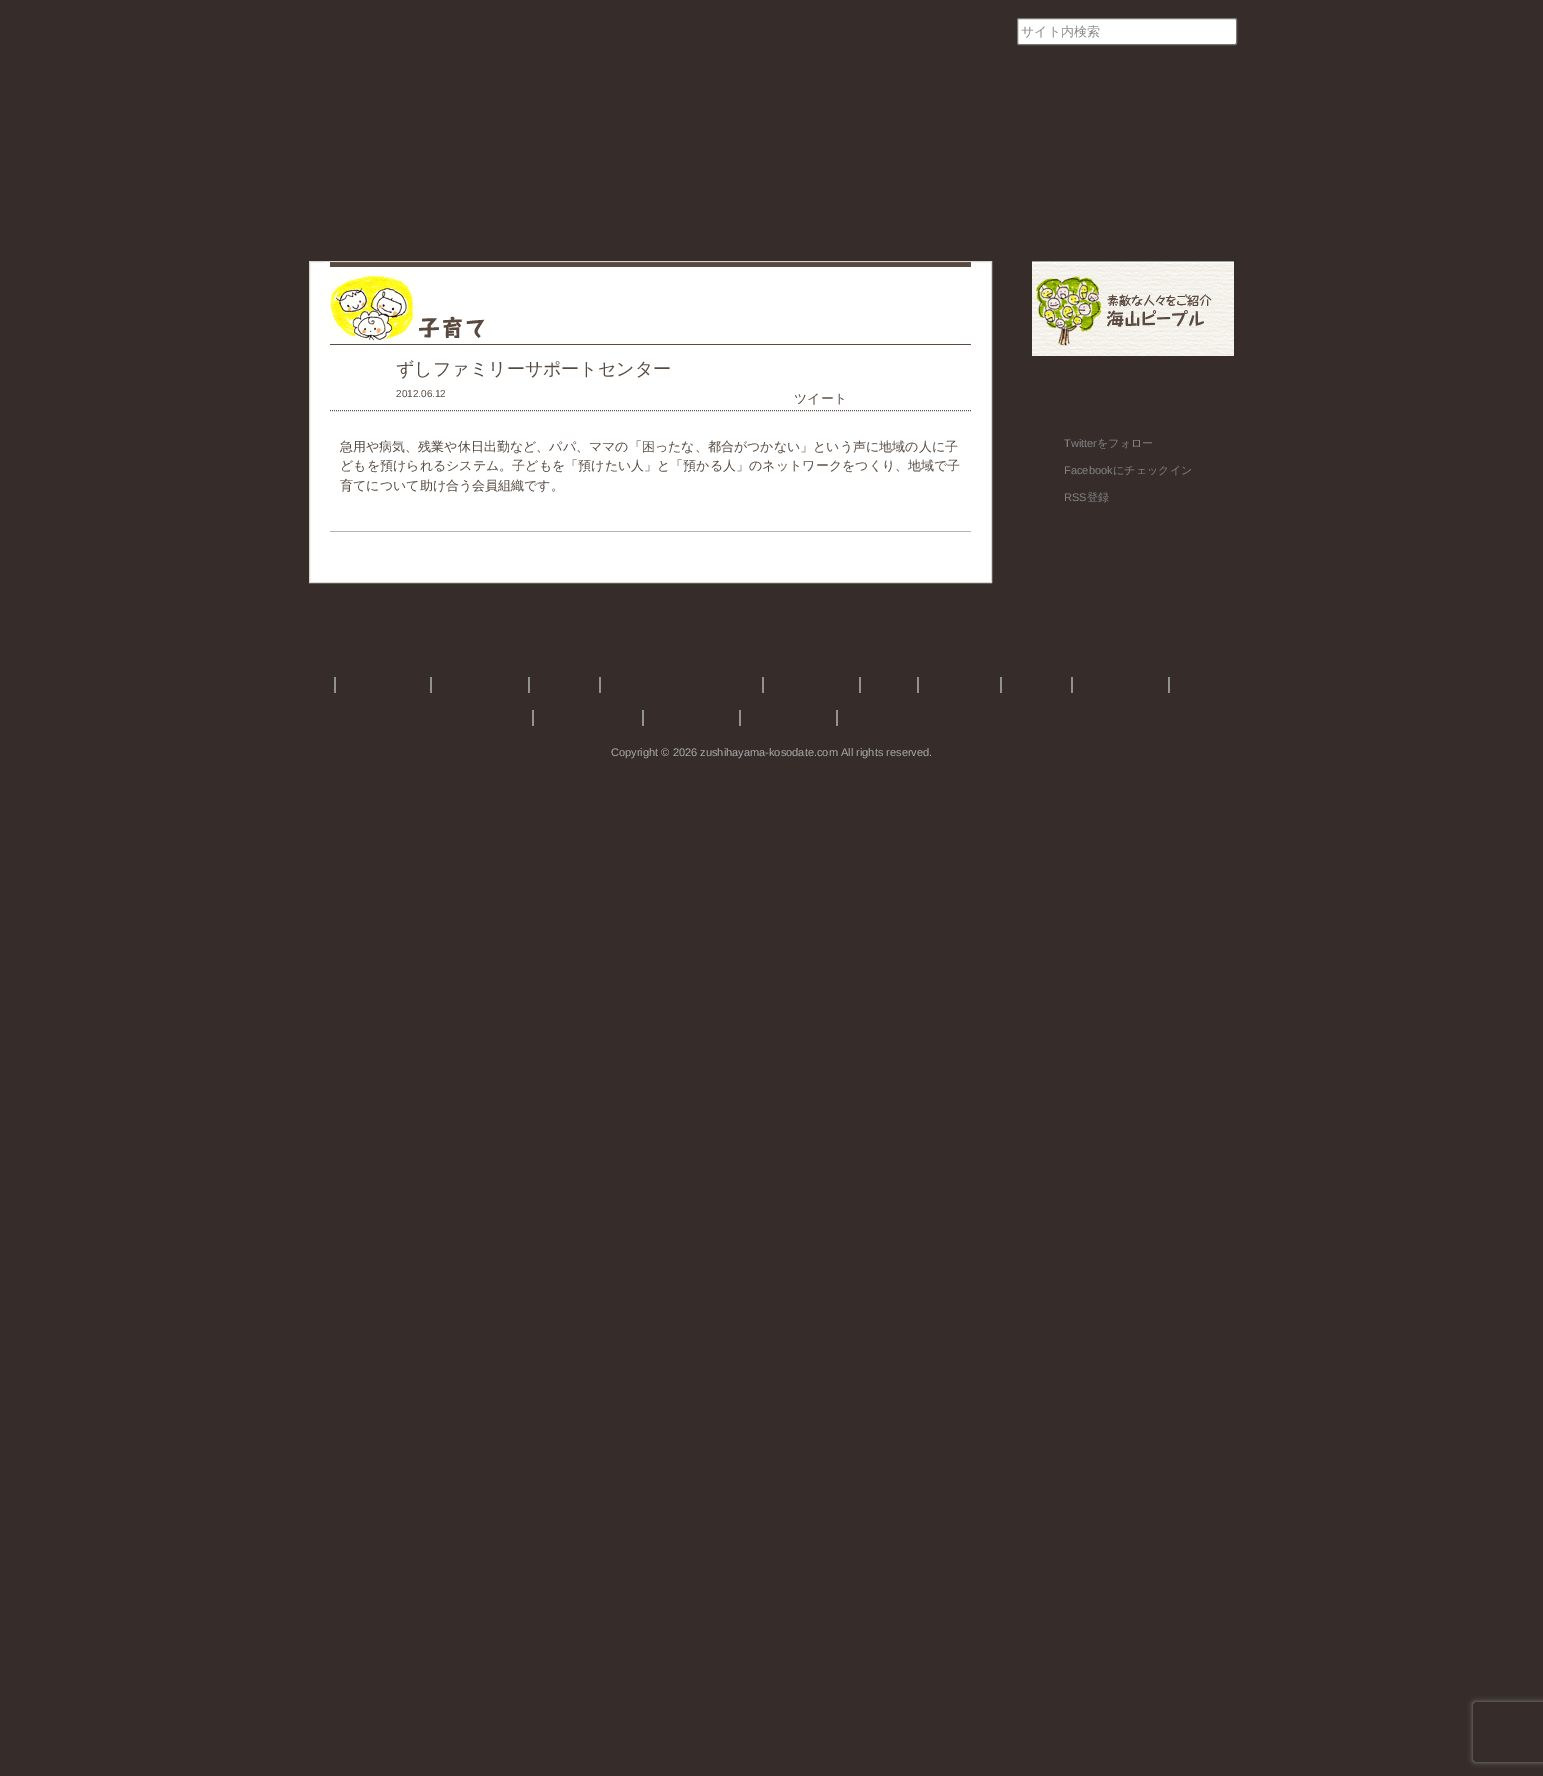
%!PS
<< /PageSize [1543 1776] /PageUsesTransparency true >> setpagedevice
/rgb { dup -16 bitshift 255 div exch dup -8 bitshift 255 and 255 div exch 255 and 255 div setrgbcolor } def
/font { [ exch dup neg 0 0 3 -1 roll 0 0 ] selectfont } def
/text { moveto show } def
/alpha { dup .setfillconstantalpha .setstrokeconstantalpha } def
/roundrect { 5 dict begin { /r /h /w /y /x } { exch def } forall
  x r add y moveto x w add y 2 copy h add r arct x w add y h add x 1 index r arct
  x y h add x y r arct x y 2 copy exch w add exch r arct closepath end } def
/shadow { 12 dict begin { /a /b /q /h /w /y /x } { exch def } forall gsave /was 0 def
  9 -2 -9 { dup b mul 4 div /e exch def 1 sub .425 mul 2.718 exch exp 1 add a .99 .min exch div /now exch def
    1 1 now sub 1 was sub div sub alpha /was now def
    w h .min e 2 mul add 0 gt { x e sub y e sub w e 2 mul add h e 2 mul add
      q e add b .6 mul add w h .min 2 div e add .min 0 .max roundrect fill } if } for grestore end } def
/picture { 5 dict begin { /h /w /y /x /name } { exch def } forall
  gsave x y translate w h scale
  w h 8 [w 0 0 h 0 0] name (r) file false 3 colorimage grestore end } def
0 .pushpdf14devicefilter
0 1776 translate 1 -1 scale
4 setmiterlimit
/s1 { /WenQuanYiZenHei-Medium 13 font 16#888888 rgb } def
/s2 { /WenQuanYiZenHei-Medium 18 font 16#564A41 rgb } def
/s3 { /LiberationSans-Regular 10 font 16#564A41 rgb } def
/s4 { /WenQuanYiZenHei-Medium 13 font 16#564A41 rgb } def
/s5 { /LiberationSans-Regular 11.05 font 16#828282 rgb } def
/s6 { /WenQuanYiZenHei-Medium 11.05 font 16#828282 rgb } def
/s7 { /LiberationSans-Regular 11.05 font 16#A9A9A9 rgb } def
16#362D2B rgb
0 0 1543 1776 rectfill
16#FFFFFF rgb
1017.5 18.5 219 26 1.5 roundrect gsave fill grestore
16#767676 rgb
stroke
s1
(サイト内検索) 1021 36 text
16#FFFFFF rgb
309.5 261.5 moveto 991.5 261.5 lineto 991.5 582.5 lineto 309.5 582.5 lineto closepath gsave fill grestore
16#D8D7D0 rgb
stroke
(pic1.raw) 324 262 647 83 picture
16#564A41 rgb
[1 1] 0 setdash
330 410.5 moveto 971 410.5 lineto stroke
s2
(ずしファミリーサポートセンター) 396 375 text
s3
(2012.06.12) 396 397 text
s4
(ツイート) 794 403 text
(急用や病気、残業や休日出勤など、パパ、ママの「困ったな、都合がつかない」という声に地域の人に子) 340 451 text
(どもを預けられるシステム。子どもを「預けたい人」と「預かる人」のネットワークをつくり、地域で子) 340 470 text
(育てについて助け合う会員組織です。) 340 490 text
16#B4B4B4 rgb
330 531 641 1 rectfill
(pic2.raw) 1032 261 202 95 picture
s5
(Twitter) 1064 447 text
s6
(をフォロー) 1097 447 text
s5
(Facebook) 1064 474 text
s6
(にチェックイン) 1113 474 text
s5
(RSS) 1064 501 text
s6
(登録) 1087 501 text
16#929292 rgb
334 677 2 16 rectfill
430 677 2 16 rectfill
528 677 2 16 rectfill
599 677 2 16 rectfill
762 677 2 16 rectfill
859 677 2 16 rectfill
917 677 2 16 rectfill
1000 677 2 16 rectfill
1168 677 2 16 rectfill
1071 677 2 16 rectfill
532 710 2 16 rectfill
642 710 2 16 rectfill
836 710 2 16 rectfill
739 710 2 16 rectfill
s7
(Copyright © 2026 zushihayama-kosodate.com All rights reserved.) 611 756 text
gsave
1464 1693 moveto 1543 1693 lineto 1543 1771 lineto 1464 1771 lineto closepath 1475 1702 moveto 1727 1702 lineto 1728 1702 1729 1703 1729 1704 curveto 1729 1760 lineto 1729 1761 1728 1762 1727 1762 curveto 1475 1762 lineto 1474 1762 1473 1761 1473 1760 curveto 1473 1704 lineto 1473 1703 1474 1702 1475 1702 curveto closepath eoclip newpath
16#808080 rgb
1473 1702 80 60 2 2.5 1 shadow
grestore
.poppdf14devicefilter showpage
